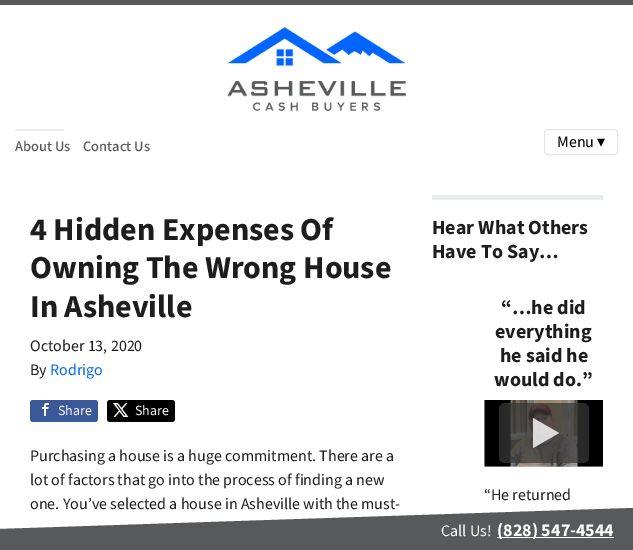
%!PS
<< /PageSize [633 550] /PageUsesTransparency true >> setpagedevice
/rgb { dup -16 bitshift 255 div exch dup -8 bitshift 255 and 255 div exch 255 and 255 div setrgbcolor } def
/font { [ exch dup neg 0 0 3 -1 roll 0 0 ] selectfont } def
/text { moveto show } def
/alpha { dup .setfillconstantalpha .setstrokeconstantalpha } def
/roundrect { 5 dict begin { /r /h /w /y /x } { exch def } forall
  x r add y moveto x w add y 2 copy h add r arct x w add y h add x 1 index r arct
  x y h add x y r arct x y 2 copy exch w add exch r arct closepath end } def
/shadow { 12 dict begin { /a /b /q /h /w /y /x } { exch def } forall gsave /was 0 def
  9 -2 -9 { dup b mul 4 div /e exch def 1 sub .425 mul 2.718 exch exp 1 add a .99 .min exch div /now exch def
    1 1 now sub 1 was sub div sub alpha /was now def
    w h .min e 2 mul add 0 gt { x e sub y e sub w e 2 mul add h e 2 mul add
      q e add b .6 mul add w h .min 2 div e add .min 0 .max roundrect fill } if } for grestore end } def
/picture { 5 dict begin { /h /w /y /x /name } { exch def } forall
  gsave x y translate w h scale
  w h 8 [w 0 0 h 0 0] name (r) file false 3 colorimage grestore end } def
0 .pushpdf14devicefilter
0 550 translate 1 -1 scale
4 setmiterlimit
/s1 { /SourceSans3-Medium 14.5 font 16#58595B rgb } def
/s2 { /SourceSans3-Regular 16 font 16#000000 rgb } def
/s3 { /DejaVuSans-Regular 16 font 16#000000 rgb } def
/s4 { /SourceSans3-Bold 32 font 16#1D1D1D rgb } def
/s5 { /SourceSans3-Regular 16 font 16#1D1D1D rgb } def
/s6 { /SourceSans3-Regular 16 font 16#0065FE rgb } def
/s7 { /SourceSans3-Regular 14 font 16#FFFFFF rgb } def
/s8 { /SourceSans3-Bold 20 font 16#1D1D1D rgb } def
/s9 { /SourceSans3-Regular 16 font 16#FFFFFF rgb } def
/s10 { /SourceSans3-Bold 18 font 16#FFFFFF rgb } def
16#FFFFFF rgb
0 0 633 550 rectfill
16#58595B rgb
0 0 633 5 rectfill
(pic1.raw) 227 27 179 84 picture
16#E9ECEF rgb
15 129 49 2 rectfill
s1
(About Us) 15 151 text
(Contact Us) 83 151 text
16#E6E6E6 rgb
544.5 129.5 73 25 3.5 roundrect stroke
s2
(Menu) 557 147 text
s3
(▾) 597 147 text
s4
(4 Hidden Expenses Of) 30 240 text
(Owning The Wrong House) 30 278 text
(In Asheville) 30 317 text
s5
(October 13, 2020) 30 351 text
(By) 30 375 text
s6
(Rodrigo) 50 375 text
16#3B5998 rgb
30 400 68 22 3 roundrect fill
(pic2.raw) 42 403 7 13 picture
s7
(Share) 58 415 text
16#000000 rgb
107 400 68 22 3 roundrect fill
(pic3.raw) 113 403 16 14 picture
s7
(Share) 135 415 text
s5
(Purchasing a house is a huge commitment. There are a) 30 461 text
(lot of factors that go into the process of finding a new) 30 485 text
(one. You’ve selected a house in Asheville with the must-) 30 509 text
16#E9ECEF rgb
432 195 171 5 rectfill
s8
(Hear What Others) 432 234 text
(Have To Say…) 432 258 text
(“…he did) 501 314 text
(everything) 495 338 text
(he said he) 500 362 text
(would do.”) 494 386 text
(pic4.raw) 484 400 119 67 picture
gsave
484 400 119 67 rectclip
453 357 moveto 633 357 lineto 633 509 lineto 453 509 lineto closepath 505 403 moveto 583 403 lineto 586.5 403 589 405.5 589 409 curveto 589 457 lineto 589 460.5 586.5 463 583 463 curveto 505 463 lineto 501.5 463 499 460.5 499 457 curveto 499 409 lineto 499 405.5 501.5 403 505 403 curveto closepath eoclip newpath
16#000000 rgb
499 403 90 60 6 15 0.48 shadow
grestore
0.8 alpha
16#333333 rgb
499 403 90 60 6 roundrect fill
16#FFFFFF rgb
533 448 moveto 533 418 lineto 559 433 lineto closepath fill
1 alpha
s5
(“He returned) 484 500 text
16#58595B rgb
633 508 moveto 0 529 lineto 0 550 lineto 633 550 lineto closepath fill
s9
(Call Us!) 441 536 text
497 537 117 1 rectfill
s10
(\(828\) 547-4544) 497 536 text
.poppdf14devicefilter showpage
